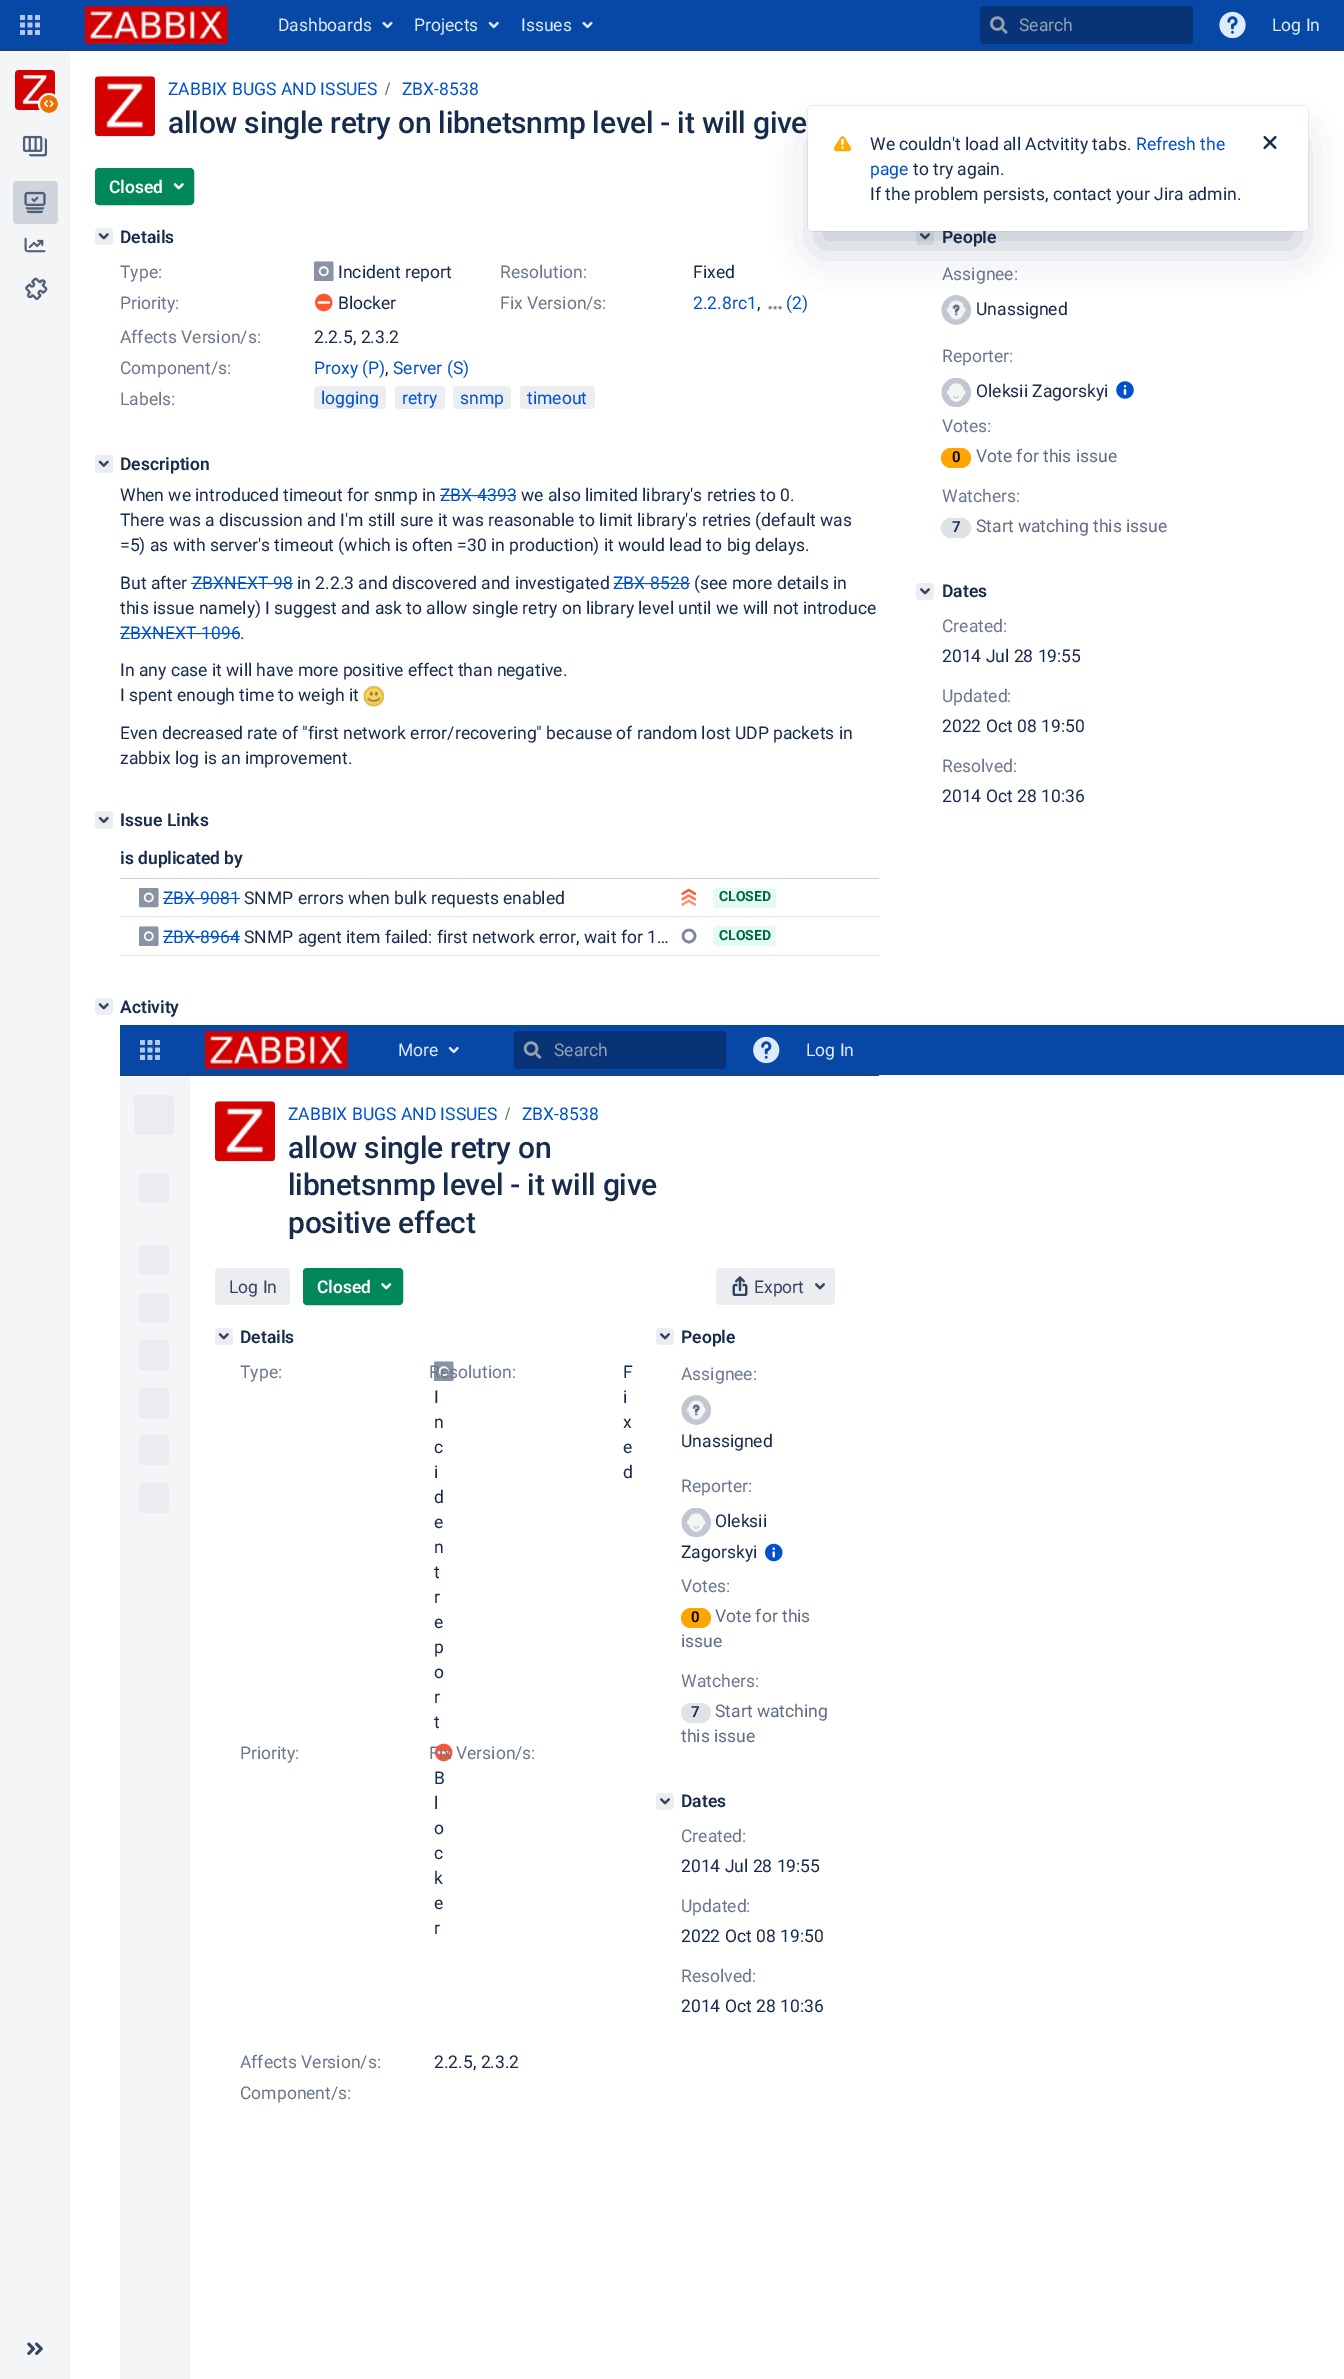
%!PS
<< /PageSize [1344 2379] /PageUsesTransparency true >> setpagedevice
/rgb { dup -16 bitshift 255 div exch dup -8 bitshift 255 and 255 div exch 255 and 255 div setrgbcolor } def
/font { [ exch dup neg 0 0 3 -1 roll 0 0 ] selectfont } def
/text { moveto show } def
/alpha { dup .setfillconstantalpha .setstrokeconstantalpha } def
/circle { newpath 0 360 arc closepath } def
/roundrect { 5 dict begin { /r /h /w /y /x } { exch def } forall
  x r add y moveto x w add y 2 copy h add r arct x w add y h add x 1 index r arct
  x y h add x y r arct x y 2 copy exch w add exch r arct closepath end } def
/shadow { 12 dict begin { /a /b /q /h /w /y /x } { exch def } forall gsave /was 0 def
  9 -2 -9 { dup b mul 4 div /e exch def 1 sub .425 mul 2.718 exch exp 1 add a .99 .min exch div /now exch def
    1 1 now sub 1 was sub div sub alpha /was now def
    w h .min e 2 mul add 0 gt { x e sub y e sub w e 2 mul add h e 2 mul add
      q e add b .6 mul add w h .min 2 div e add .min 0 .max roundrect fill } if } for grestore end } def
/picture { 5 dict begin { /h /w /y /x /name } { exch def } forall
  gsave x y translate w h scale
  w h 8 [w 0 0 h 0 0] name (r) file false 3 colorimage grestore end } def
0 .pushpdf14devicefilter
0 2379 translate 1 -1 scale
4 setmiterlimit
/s1 { /Roboto-Regular 17.5 font 16#DEEBFF rgb } def
/s2 { /Roboto-Regular 17.5 font 16#97A0AF rgb } def
/s3 { /Roboto-Regular 17.5 font 16#0052CC rgb } def
/s4 { /Roboto-SemiBold 17.5 font 16#FFFFFF rgb } def
/s5 { /Roboto-SemiBold 17.5 font 16#172B4D rgb } def
/s6 { /Roboto-Regular 17.5 font 16#6B778C rgb } def
/s7 { /Roboto-Regular 17.5 font 16#172B4D rgb } def
/s8 { /Roboto-Bold 14 font 16#006644 rgb } def
/s9 { /Roboto-Regular 17.5 font 16#344563 rgb } def
/s10 { /Roboto-SemiBold 15 font 16#000000 rgb } def
/s11 { /Roboto-Regular 17.5 font 16#5E6C84 rgb } def
/s12 { /Roboto-SemiBold 15 font 16#172B4D rgb } def
16#FFFFFF rgb
0 0 1344 2379 rectfill
16#0747A6 rgb
0 0 1344 50 rectfill
16#2E3D54 rgb
0 50 1344 1 rectfill
(pic1.raw) 20 15 20 20 picture
(pic2.raw) 85 6 143 38 picture
s1
(Dashboards) 278 31 text
(pic3.raw) 382 21 11 8 picture
(Projects) 414 31 text
(pic4.raw) 488 21 11 8 picture
(Issues) 521 31 text
(pic3.raw) 582 21 11 8 picture
16#083376 rgb
980 6 213 38 4 roundrect fill
(pic5.raw) 990 16 18 18 picture
s2
(Search) 1019 31 text
(pic6.raw) 1219 11 27 28 picture
s1
(Log In) 1272 31 text
16#F4F5F7 rgb
0 51 70 2328 rectfill
(pic7.raw) 15 70 40 40 picture
49 104 11 circle fill
(pic8.raw) 40 95 18 18 picture
(pic9.raw) 22 135 26 22 picture
16#E1E4E9 rgb
13 181 45 43 4 roundrect fill
0.08 alpha
16#091E42 rgb
13 181 45 43 4 roundrect fill
1 alpha
(pic10.raw) 24 191 22 23 picture
(pic11.raw) 24 237 22 16 picture
(pic12.raw) 25 277 23 23 picture
(pic13.raw) 27 2342 16 13 picture
(pic14.raw) 95 76 60 61 picture
s3
(ZABBIX BUGS AND ISSUES) 168 95 text
16#707070 rgb
386 95 moveto 390 82.5 lineto 389 82.5 lineto 385 95 lineto closepath fill
s3
(ZBX-8538) 402 95 text
/Roboto-Medium 30 font
16#172B4D rgb
168 133 moveto -0.3 0 (allow single retry on libnetsnmp level - it will give) ashow
16#00875A rgb
95.5 168.5 98 36 3.5 roundrect gsave fill grestore
stroke
s4
(Closed) 109 193 text
(pic15.raw) 173 183 11 7 picture
16#EBEDF0 rgb
95 228 18 17 4 roundrect fill
(pic16.raw) 98 233 11 7 picture
s5
(Details) 120 243 text
s6
(Type:) 120 278 text
(pic17.raw) 314 261 20 20 picture
s7
(Incident report) 338 278 text
s6
(Resolution:) 500 278 text
s7
(Fixed) 693 278 text
s6
(Priority:) 120 309 text
(pic18.raw) 315 293 18 19 picture
s7
(Blocker) 338 309 text
s6
(Fix Version/s:) 500 309 text
s3
(2.2.8rc1) 693 309 text
s7
(,) 757 309 text
(pic19.raw) 767 305 16 6 picture
s3
(\(2\)) 786 309 text
s6
(Affects Version/s:) 120 343 text
s7
(2.2.5, 2.3.2) 314 343 text
s6
(Component/s:) 120 374 text
s3
(Proxy \(P\)) 314 374 text
s7
(,) 385 374 text
s3
(Server \(S\)) 393 374 text
s6
(Labels:) 120 405 text
16#EBEDF0 rgb
314 386 72 23 4 roundrect fill
s3
(logging) 321 404 text
16#EBEDF0 rgb
395 386 50 23 4 roundrect fill
s3
(retry) 402 404 text
16#EBEDF0 rgb
453 386 58 23 4 roundrect fill
s3
(snmp) 460 404 text
16#EBEDF0 rgb
520 386 75 23 4 roundrect fill
s3
(timeout) 527 404 text
16#EBEDF0 rgb
95 455 18 18 4 roundrect fill
(pic20.raw) 98 460 11 7 picture
s5
(Description) 120 470 text
s7
(When we introduced timeout for snmp in) 120 501 text
s3
(ZBX-4393) 440 501 text
440 495 76 1 rectfill
s7
(we also limited library's retries to 0.) 521 501 text
(There was a discussion and I'm still sure it was reasonable to limit library's retries \(default was) 120 526 text
(=5\) as with server's timeout \(which is often =30 in production\) it would lead to big delays.) 120 551 text
(But after) 120 589 text
s3
(ZBXNEXT-98) 192 589 text
191 583 102 1 rectfill
s7
(in 2.2.3 and discovered and investigated) 297 589 text
s3
(ZBX-8528) 613 589 text
614 583 76 1 rectfill
s7
(\(see more details in) 694 589 text
(this issue namely\) I suggest and ask to allow single retry on library level until we will not introduce) 120 614 text
s3
(ZBXNEXT-1096) 120 639 text
120 633 120 1 rectfill
s7
(.) 240 639 text
(In any case it will have more positive effect than negative.) 120 676 text
(I spent enough time to weigh it) 120 701 text
(pic21.raw) 363 686 21 21 picture
(Even decreased rate of "first network error/recovering" because of random lost UDP packets in) 120 739 text
(zabbix log is an improvement.) 120 764 text
16#EBEDF0 rgb
95 811 18 18 4 roundrect fill
(pic22.raw) 98 816 11 8 picture
s5
(Issue Links) 120 826 text
(is duplicated by) 120 864 text
16#CCCCCC rgb
120 878 759 1 rectfill
16#DFE1E5 rgb
120 916 759 1 rectfill
(pic23.raw) 139 888 20 20 picture
s3
(ZBX-9081) 163 904 text
163 898 77 1 rectfill
s7
(SNMP errors when bulk requests enabled) 244 904 text
(pic24.raw) 681 888 16 18 picture
16#E3FCEF rgb
713 888 63 20 4 roundrect fill
s8
(CLOSED) 719 901 text
16#DFE1E5 rgb
120 955 759 1 rectfill
(pic17.raw) 139 926 20 20 picture
s3
(ZBX-8964) 163 943 text
163 936 77 1 rectfill
s7
(SNMP agent item failed: first network error, wait for 1…) 244 943 text
16#7A8699 rgb
2.5 setlinewidth
689 936 6 circle stroke
16#E3FCEF rgb
713 926 63 20 4 roundrect fill
s8
(CLOSED) 719 940 text
16#EBEDF0 rgb
95 998 18 17 4 roundrect fill
(pic16.raw) 98 1003 11 7 picture
s5
(Activity) 120 1013 text
16#0747A6 rgb
120 1025 1224 50 rectfill
16#2E3D54 rgb
120 1075 759 1 rectfill
(pic1.raw) 140 1040 20 20 picture
(pic2.raw) 205 1031 143 38 picture
s1
(More) 398 1056 text
(pic4.raw) 448 1046 11 8 picture
16#083376 rgb
514 1031 212 38 4 roundrect fill
(pic25.raw) 523 1041 19 18 picture
s2
(Search) 554 1056 text
(pic26.raw) 753 1036 27 28 picture
s1
(Log In) 806 1056 text
16#F4F5F7 rgb
120 1076 70 1303 rectfill
16#EBECF0 rgb
134 1095 40 40 4 roundrect fill
139 1173 30 30 4 roundrect fill
139 1245 30 30 4 roundrect fill
139 1293 30 30 4 roundrect fill
139 1340 30 30 4 roundrect fill
139 1388 30 30 4 roundrect fill
139 1435 30 30 4 roundrect fill
139 1483 30 30 4 roundrect fill
(pic14.raw) 215 1101 60 61 picture
s3
(ZABBIX BUGS AND ISSUES) 288 1120 text
16#707070 rgb
506 1120 moveto 510 1107.5 lineto 509 1107.5 lineto 505 1120 lineto closepath fill
s3
(ZBX-8538) 522 1120 text
/Roboto-Medium 30 font
16#172B4D rgb
288 1158 moveto -0.3 0 (allow single retry on) ashow
288 1195 moveto -0.3 0 (libnetsnmp level - it will give) ashow
288 1233 moveto -0.3 0 (positive effect) ashow
16#EBEDF0 rgb
215 1268 75 37 4 roundrect fill
s9
(Log In) 229 1293 text
16#00875A rgb
303.5 1268.5 99 36 3.5 roundrect gsave fill grestore
1 setlinewidth
stroke
s4
(Closed) 317 1293 text
(pic27.raw) 381 1283 11 7 picture
16#EBEDF0 rgb
716 1268 119 37 4 roundrect fill
(pic28.raw) 732 1276 16 20 picture
s9
(Export) 754 1293 text
(pic29.raw) 815 1283 10 7 picture
16#EBEDF0 rgb
215 1328 18 17 4 roundrect fill
(pic16.raw) 218 1333 11 7 picture
s5
(Details) 240 1343 text
s6
(Type:) 240 1378 text
(pic17.raw) 434 1361 20 20 picture
s7
(I) 434 1403 text
(n) 434 1428 text
(c) 434 1453 text
(i) 434 1478 text
(d) 434 1503 text
(e) 434 1528 text
(n) 434 1553 text
(t) 434 1578 text
(r) 434 1603 text
(e) 434 1628 text
(p) 434 1653 text
(o) 434 1678 text
(r) 434 1703 text
(t) 434 1728 text
s6
(Resolution:) 429 1378 text
s7
(F) 623 1378 text
(i) 623 1403 text
(x) 623 1428 text
(e) 623 1453 text
(d) 623 1478 text
s6
(Priority:) 240 1759 text
(pic18.raw) 435 1743 18 19 picture
s7
(B) 434 1784 text
(l) 434 1809 text
(o) 434 1834 text
(c) 434 1859 text
(k) 434 1884 text
(e) 434 1909 text
(r) 434 1934 text
s6
(Fix Version/s:) 429 1759 text
(Affects Version/s:) 240 2068 text
s7
(2.2.5, 2.3.2) 434 2068 text
s6
(Component/s:) 240 2099 text
16#EBEDF0 rgb
656 1328 18 17 4 roundrect fill
(pic30.raw) 660 1333 10 7 picture
s5
(People) 681 1343 text
s6
(Assignee:) 681 1380 text
(pic31.raw) 681 1395 30 30 picture
s7
(Unassigned) 681 1447 text
s6
(Reporter:) 681 1492 text
(pic32.raw) 681 1508 30 30 picture
s7
(Oleksii) 715 1527 text
(Zagorskyi) 681 1558 text
(pic33.raw) 765 1543 18 19 picture
s6
(Votes:) 681 1592 text
16#FFA500 rgb
681 1608 30 20 10 roundrect fill
s10
(0) 691 1622 text
s11
(Vote for this) 715 1622 text
(issue) 681 1647 text
s6
(Watchers:) 681 1687 text
16#DFE2E6 rgb
681 1703 30 20 10 roundrect fill
s12
(7) 691 1717 text
s11
(Start watching) 715 1717 text
(this issue) 681 1742 text
16#EBEDF0 rgb
656 1793 18 17 4 roundrect fill
(pic30.raw) 660 1798 10 7 picture
s5
(Dates) 681 1807 text
s6
(Created:) 681 1842 text
s7
(2014 Jul 28 19:55) 681 1872 text
s6
(Updated:) 681 1912 text
s7
(2022 Oct 08 19:50) 681 1942 text
s6
(Resolved:) 681 1982 text
s7
(2014 Oct 28 10:36) 681 2012 text
16#EBEDF0 rgb
916 228 18 17 4 roundrect fill
(pic30.raw) 920 233 10 7 picture
s5
(People) 942 243 text
s6
(Assignee:) 942 280 text
(pic34.raw) 941 295 30 30 picture
s7
(Unassigned) 976 315 text
s6
(Reporter:) 942 362 text
(pic35.raw) 941 378 30 30 picture
s7
(Oleksii Zagorskyi) 976 397 text
(pic36.raw) 1116 381 18 18 picture
s6
(Votes:) 942 432 text
16#FFA500 rgb
941 448 30 20 10 roundrect fill
s10
(0) 952 462 text
s11
(Vote for this issue) 976 462 text
s6
(Watchers:) 942 502 text
16#DFE2E6 rgb
941 518 30 20 10 roundrect fill
s12
(7) 952 532 text
s11
(Start watching this issue) 976 532 text
16#EBEDF0 rgb
916 583 18 17 4 roundrect fill
(pic30.raw) 920 588 10 7 picture
s5
(Dates) 942 597 text
s6
(Created:) 942 632 text
s7
(2014 Jul 28 19:55) 942 662 text
s6
(Updated:) 942 702 text
s7
(2022 Oct 08 19:50) 942 732 text
s6
(Resolved:) 942 772 text
s7
(2014 Oct 28 10:36) 942 802 text
16#091E42 rgb
808 106 500 125 4 0.5 0.25 shadow
818 141 480 105 0 20 0.25 shadow
16#FFFFFF rgb
808 106 500 125 4 roundrect fill
(pic37.raw) 833 136 19 16 picture
s7
(We couldn't load all Actvitity tabs.) 870 150 text
s3
(Refresh the) 1136 150 text
(pic38.raw) 1263 136 14 13 picture
(page) 870 175 text
s7
(to try again.) 913 175 text
(If the problem persists, contact your Jira admin.) 870 200 text
.poppdf14devicefilter showpage
